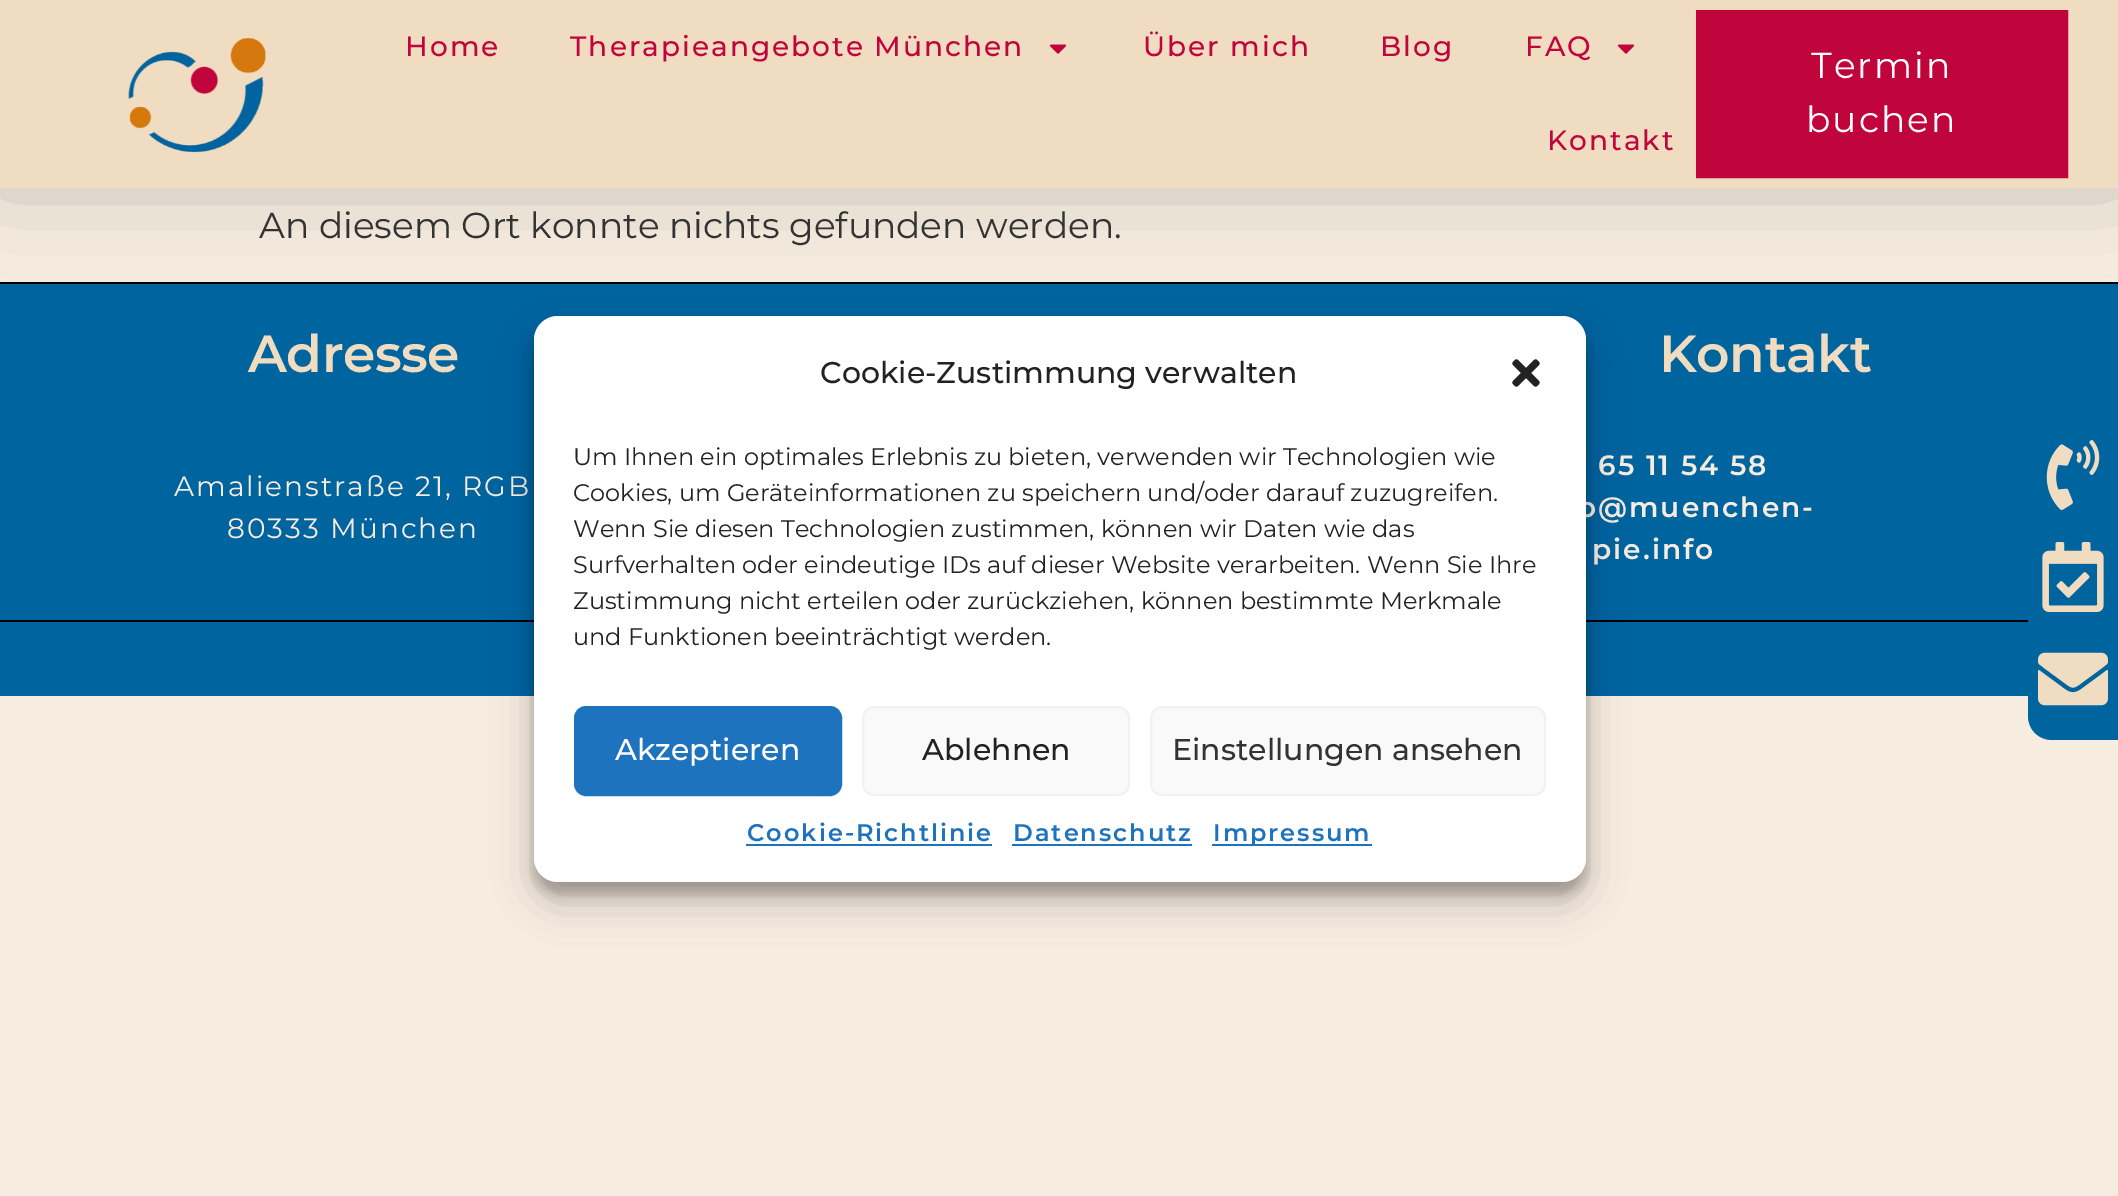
%!PS
<< /PageSize [2118 1196] /PageUsesTransparency true >> setpagedevice
/rgb { dup -16 bitshift 255 div exch dup -8 bitshift 255 and 255 div exch 255 and 255 div setrgbcolor } def
/font { [ exch dup neg 0 0 3 -1 roll 0 0 ] selectfont } def
/text { moveto show } def
/alpha { dup .setfillconstantalpha .setstrokeconstantalpha } def
/roundrect { 5 dict begin { /r /h /w /y /x } { exch def } forall
  x r add y moveto x w add y 2 copy h add r arct x w add y h add x 1 index r arct
  x y h add x y r arct x y 2 copy exch w add exch r arct closepath end } def
/shadow { 12 dict begin { /a /b /q /h /w /y /x } { exch def } forall gsave /was 0 def
  9 -2 -9 { dup b mul 4 div /e exch def 1 sub .425 mul 2.718 exch exp 1 add a .99 .min exch div /now exch def
    1 1 now sub 1 was sub div sub alpha /was now def
    w h .min e 2 mul add 0 gt { x e sub y e sub w e 2 mul add h e 2 mul add
      q e add b .6 mul add w h .min 2 div e add .min 0 .max roundrect fill } if } for grestore end } def
/picture { 5 dict begin { /h /w /y /x /name } { exch def } forall
  gsave x y translate w h scale
  w h 8 [w 0 0 h 0 0] name (r) file false 3 colorimage grestore end } def
0 .pushpdf14devicefilter
0 1196 translate 1 -1 scale
4 setmiterlimit
/s1 { /Montserrat-Regular 36 font 16#333333 rgb } def
/s2 { /Montserrat-Medium 30 font 16#222222 rgb } def
/s3 { /Montserrat-Regular 24 font 16#222222 rgb } def
/s4 { /Montserrat-Medium 30 font 16#FFFFFF rgb } def
/s5 { /Montserrat-Medium 30 font 16#333333 rgb } def
16#F6ECE0 rgb
0 0 2118 1196 rectfill
16#00649F rgb
0 284 2118 336 rectfill
16#000000 rgb
0 282 2118 2 rectfill
0 -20 2118 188 0 50 0.3 shadow
16#F0DCC1 rgb
0 0 2118 188 rectfill
(pic1.raw) 128 38 138 115 picture
/Montserrat-Medium 28 font
16#C0043C rgb
405 56 moveto 2 0 (Home) ashow
570 56 moveto 2 0 (Therapieangebote München) ashow
(pic2.raw) 1049 44 18 10 picture
1143 56 moveto 2 0 (Über mich) ashow
1380 56 moveto 2 0 (Blog) ashow
1525 56 moveto 2 0 (FAQ) ashow
(pic2.raw) 1617 44 18 10 picture
1547 150 moveto 2 0 (Kontakt) ashow
1702 16 360 156 rectfill
6 setlinewidth
1699 13 moveto 2065 13 lineto 2065 175 lineto 1699 175 lineto closepath stroke
/Montserrat-Regular 36 font
16#FFFFFF rgb
1811 78 moveto 2 0 (Termin) ashow
1806 132 moveto 2 0 (buchen) ashow
s1
(An diesem Ort konnte nichts gefunden werden.) 259 238 text
16#000000 rgb
0 620 2028 2 rectfill
/Montserrat-SemiBold 52 font
16#F0DCC1 rgb
248 372 moveto -0.5 0 (Adresse) ashow
/Montserrat-Regular 28 font
16#F6ECE0 rgb
174 496 moveto 2 0 (Amalienstraße 21, RGB) ashow
227 538 moveto 2 0 (80333 München) ashow
/Montserrat-SemiBold 52 font
16#F0DCC1 rgb
1659 372 moveto -0.5 0 (Kontakt) ashow
/Montserrat-SemiBold 28 font
16#F6ECE0 rgb
1598 475 moveto 2 0 (65 11 54 58) ashow
1578 517 moveto 2 0 (o@muenchen-) ashow
1592 559 moveto 2 0 (pie.info) ashow
(pic3.raw) 2046 440 54 70 picture
16#00649F rgb
2028 620 90 14 rectfill
(pic4.raw) 2042 542 62 70 picture
2028 634 moveto 2118 634 lineto 2118 740 lineto 2052 740 lineto 2038.5 740 2028 729.5 2028 716 curveto closepath fill
(pic5.raw) 2038 652 70 54 picture
0 622 2028 74 rectfill
16#000000 rgb
534 328 1052 566 24 6 0.23 shadow
534 336 1052 566 24 20 0.19 shadow
16#FFFFFF rgb
534 316 1052 566 24 roundrect fill
s2
(Cookie-Zustimmung verwalten) 820 383 text
(pic6.raw) 1512 359 28 28 picture
s3
(Um Ihnen ein optimales Erlebnis zu bieten, verwenden wir Technologien wie) 573 465 text
(Cookies, um Geräteinformationen zu speichern und/oder darauf zuzugreifen.) 573 501 text
(Wenn Sie diesen Technologien zustimmen, können wir Daten wie das) 573 537 text
(Surfverhalten oder eindeutige IDs auf dieser Website verarbeiten. Wenn Sie Ihre) 573 573 text
(Zustimmung nicht erteilen oder zurückziehen, können bestimmte Merkmale) 573 609 text
(und Funktionen beeinträchtigt werden.) 573 645 text
16#1E73BE rgb
575 707 266 88 11 roundrect gsave fill grestore
2 setlinewidth
stroke
s4
(Akzeptieren) 615 760 text
16#F9F9F9 rgb
863 707 266 88 11 roundrect gsave fill grestore
16#F2F2F2 rgb
stroke
s2
(Ablehnen) 922 760 text
16#F9F9F9 rgb
1151 707 394 88 11 roundrect gsave fill grestore
16#F2F2F2 rgb
stroke
s5
(Einstellungen ansehen) 1172 760 text
/Montserrat-SemiBold 24 font
16#1E73BE rgb
747 841 moveto 2 0 (Cookie-Richtlinie) ashow
746 844 246 2 rectfill
1013 841 moveto 2 0 (Datenschutz) ashow
1012 844 180 2 rectfill
1212 844 160 2 rectfill
1213 841 moveto 2 0 (Impressum) ashow
.poppdf14devicefilter showpage
